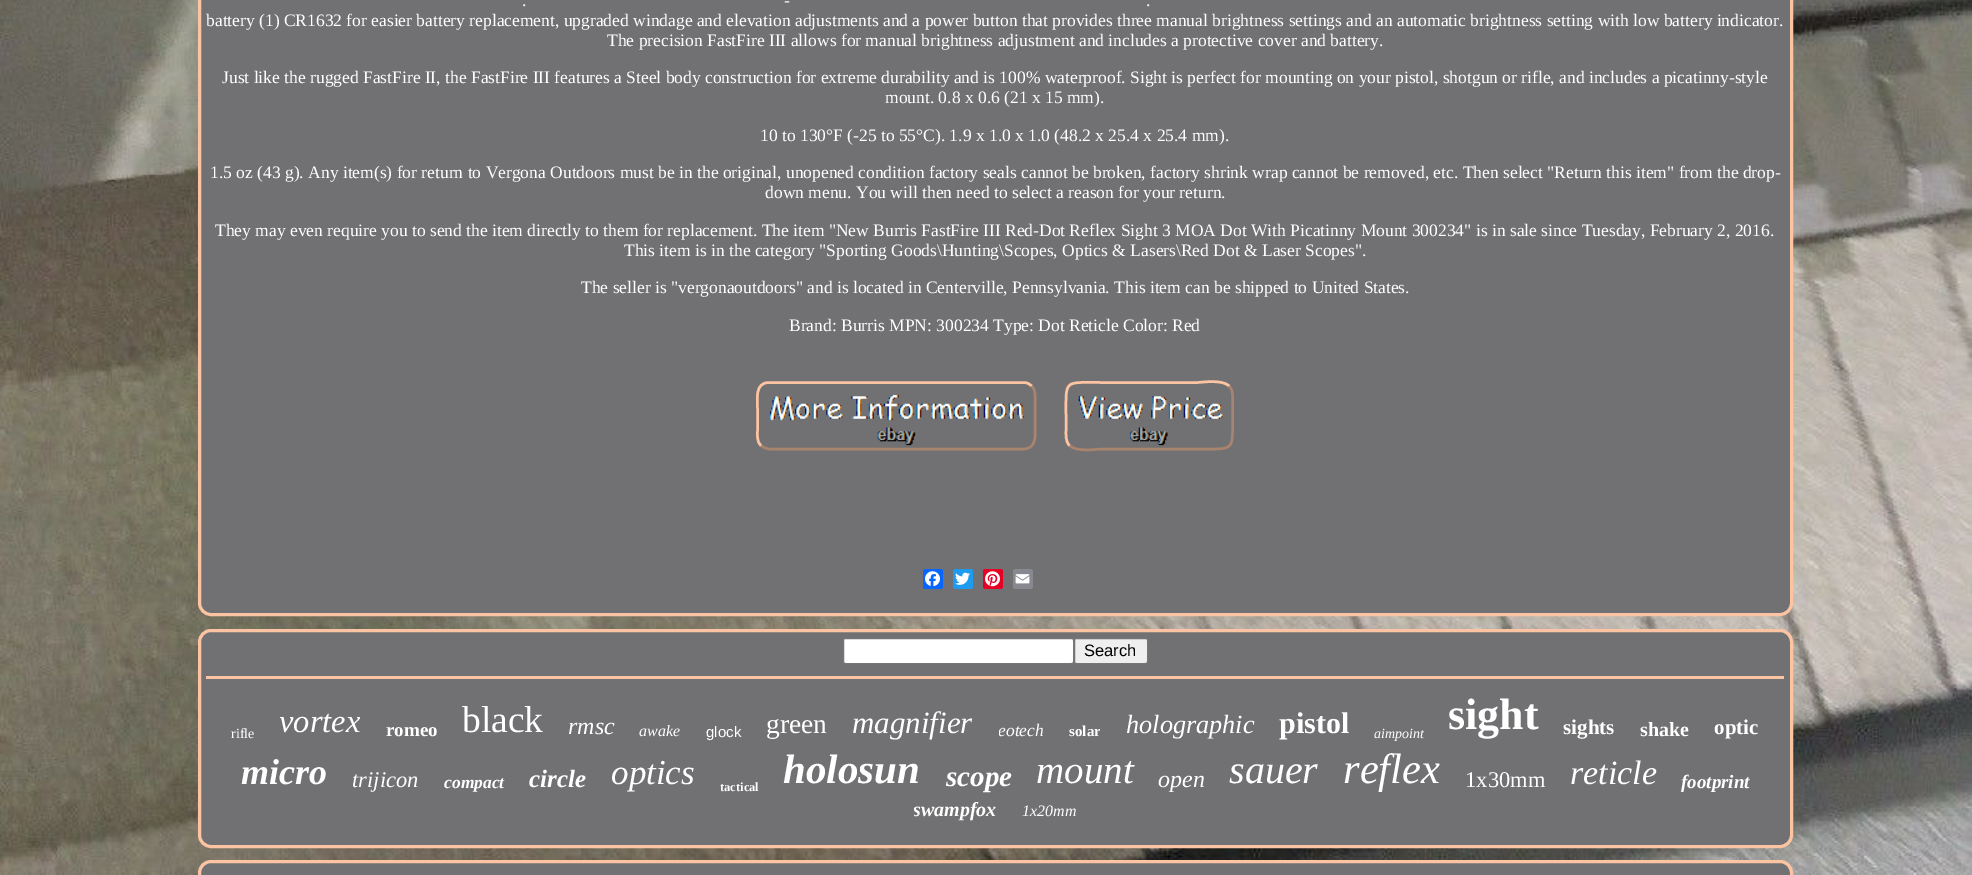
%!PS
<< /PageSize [1972 875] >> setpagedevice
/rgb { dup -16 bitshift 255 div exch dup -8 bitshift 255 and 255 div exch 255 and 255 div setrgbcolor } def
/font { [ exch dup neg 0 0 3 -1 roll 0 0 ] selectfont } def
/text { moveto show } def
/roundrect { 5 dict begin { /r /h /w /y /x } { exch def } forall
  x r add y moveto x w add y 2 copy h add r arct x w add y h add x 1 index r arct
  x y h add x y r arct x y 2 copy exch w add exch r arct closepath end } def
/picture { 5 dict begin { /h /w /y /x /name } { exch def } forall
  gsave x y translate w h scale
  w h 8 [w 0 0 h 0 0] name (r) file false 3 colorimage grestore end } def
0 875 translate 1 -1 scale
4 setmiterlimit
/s1 { /LiberationSerif-Regular 17.5 font 16#FFFFFF rgb } def
/s2 { /LiberationSans-Regular 16.5 font 16#000000 rgb } def
/s3 { /LiberationSerif-Regular 14 font 16#FFFFFF rgb } def
/s4 { /LiberationSerif-Italic 32.5 font 16#FFFFFF rgb } def
/s5 { /LiberationSerif-Bold 19 font 16#FFFFFF rgb } def
/s6 { /LiberationSerif-Regular 37.5 font 16#FFFFFF rgb } def
/s7 { /LiberationSerif-Italic 24 font 16#FFFFFF rgb } def
/s8 { /LiberationSerif-Italic 16 font 16#FFFFFF rgb } def
/s9 { /LiberationSans-Regular 15 font 16#FFFFFF rgb } def
/s10 { /LiberationSerif-Regular 27.5 font 16#FFFFFF rgb } def
/s11 { /LiberationSerif-Italic 31 font 16#FFFFFF rgb } def
/s12 { /LiberationSerif-Italic 17.5 font 16#FFFFFF rgb } def
/s13 { /LiberationSerif-Bold 15 font 16#FFFFFF rgb } def
/s14 { /LiberationSerif-Italic 26.25 font 16#FFFFFF rgb } def
/s15 { /LiberationSerif-Bold 30 font 16#FFFFFF rgb } def
/s16 { /LiberationSerif-Italic 14 font 16#FFFFFF rgb } def
/s17 { /LiberationSerif-Bold 44 font 16#FFFFFF rgb } def
/s18 { /LiberationSerif-Bold 21 font 16#FFFFFF rgb } def
/s19 { /LiberationSerif-Bold 20 font 16#FFFFFF rgb } def
/s20 { /LiberationSerif-BoldItalic 36 font 16#FFFFFF rgb } def
/s21 { /LiberationSerif-Italic 22.5 font 16#FFFFFF rgb } def
/s22 { /LiberationSerif-BoldItalic 17.5 font 16#FFFFFF rgb } def
/s23 { /LiberationSerif-BoldItalic 25 font 16#FFFFFF rgb } def
/s24 { /LiberationSerif-Italic 35 font 16#FFFFFF rgb } def
/s25 { /LiberationSerif-Bold 12.5 font 16#FFFFFF rgb } def
/s26 { /LiberationSerif-BoldItalic 41 font 16#FFFFFF rgb } def
/s27 { /LiberationSerif-BoldItalic 29 font 16#FFFFFF rgb } def
/s28 { /LiberationSerif-Italic 39 font 16#FFFFFF rgb } def
/s29 { /LiberationSerif-Italic 40 font 16#FFFFFF rgb } def
/s30 { /LiberationSerif-Italic 42.5 font 16#FFFFFF rgb } def
/s31 { /LiberationSerif-Regular 22.5 font 16#FFFFFF rgb } def
/s32 { /LiberationSerif-Italic 34 font 16#FFFFFF rgb } def
/s33 { /LiberationSerif-BoldItalic 19 font 16#FFFFFF rgb } def
/s34 { /LiberationSerif-BoldItalic 20 font 16#FFFFFF rgb } def
16#FFFFFF rgb
0 0 1972 875 rectfill
(pic1.raw) 0 0 1972 875 picture
16#717173 rgb
199.5 -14.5 1592 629 11.5 roundrect gsave fill grestore
16#FCC4A3 rgb
3 setlinewidth
stroke
s1
(-) 784 6 text
(.) 522 6 text
(.) 1146 6 text
(battery \(1\) CR1632 for easier battery replacement, upgraded windage and elevation adjustments and a power button that provides three manual brightness settings and an automatic brightness setting with low battery indicator.) 206 26 text
(The precision FastFire III allows for manual brightness adjustment and includes a protective cover and battery.) 607 46 text
(Just like the rugged FastFire II, the FastFire III features a Steel body construction for extreme durability and is 100% waterproof. Sight is perfect for mounting on your pistol, shotgun or rifle, and includes a picatinny-style) 222 83 text
(mount. 0.8 x 0.6 \(21 x 15 mm\).) 885 103 text
(10 to 130°F \(-25 to 55°C\). 1.9 x 1.0 x 1.0 \(48.2 x 25.4 x 25.4 mm\).) 760 141 text
(1.5 oz \(43 g\). Any item\(s\) for return to Vergona Outdoors must be in the original, unopened condition factory seals cannot be broken, factory shrink wrap cannot be removed, etc. Then select "Return this item" from the drop-) 210 178 text
(down menu. You will then need to select a reason for your return.) 765 198 text
(They may even require you to send the item directly to them for replacement. The item "New Burris FastFire III Red-Dot Reflex Sight 3 MOA Dot With Picatinny Mount 300234" is in sale since Tuesday, February 2, 2016.) 215 236 text
(This item is in the category "Sporting Goods\\Hunting\\Scopes, Optics & Lasers\\Red Dot & Laser Scopes".) 624 256 text
(The seller is "vergonaoutdoors" and is located in Centerville, Pennsylvania. This item can be shipped to United States.) 581 293 text
(Brand: Burris MPN: 300234 Type: Dot Reticle Color: Red) 789 331 text
16#A8836D rgb
2.5 setlinewidth
1031.5 386 moveto 1036 390 1035 395.5 1035 401 curveto 1035 423 lineto 1035 432 1038 448.5 1024 449 curveto 769 449 lineto 766 448.5 763 447.5 761 445.5 curveto stroke
16#FCC4A3 rgb
761 445.5 moveto 756.5 441.5 757.5 435.5 757.5 430 curveto 757.5 408.5 lineto 757.5 399.5 754.5 382.5 769 382.5 curveto 1024 382.5 lineto 1026.5 382.5 1029.5 383.5 1031.5 386 curveto stroke
16#A8836D rgb
1229 386 moveto 1233.5 390 1232.5 395.5 1232.5 401 curveto 1232.5 415.5 lineto 1232.5 452 1235.5 449 1197.5 449 curveto 1101.5 449 lineto 1098 449 1076.5 452.5 1069.5 445.5 curveto stroke
16#FCC4A3 rgb
1069.5 445.5 moveto 1065.5 441.5 1066 435.5 1066 430 curveto 1066 415.5 lineto 1066 379 1063.5 382.5 1101.5 382.5 curveto 1197.5 382.5 lineto 1200.5 382.5 1222.5 379 1229 386 curveto stroke
(pic2.raw) 769 394 255 52 picture
(pic3.raw) 1078 396 145 50 picture
16#0866FF rgb
923 569 20 20 2.5 roundrect fill
(pic4.raw) 925 571 15 16 picture
16#1D9BF0 rgb
953 569 20 20 2.5 roundrect fill
(pic5.raw) 955 572 15 13 picture
16#E60023 rgb
983 569 20 20 2.5 roundrect fill
(pic6.raw) 985 571 15 16 picture
16#888990 rgb
1013 569 20 20 2.5 roundrect fill
(pic7.raw) 1015 574 15 10 picture
16#717173 rgb
199.5 630.5 1592 216 11.5 roundrect gsave fill grestore
16#FCC4A3 rgb
3 setlinewidth
stroke
16#FFFFFF rgb
843.5 638.5 230 25 2 roundrect gsave fill grestore
16#767676 rgb
1 setlinewidth
stroke
16#EFEFEF rgb
1074.5 638.5 73 25 2 roundrect gsave fill grestore
16#767676 rgb
stroke
s2
(Search) 1084 656 text
16#FCC4A3 rgb
206 676 1578 3 rectfill
s3
(rifle) 231 738 text
gsave
280 704 80 37 rectclip
s4
(vortex) 279 732 text
grestore
s5
(romeo) 386 736 text
s6
(black) 462 732 text
s7
(rmsc) 568 734 text
s8
(awake) 639 736 text
s9
(glock) 706 737 text
s10
(green) 766 733 text
s11
(magnifier) 852 733 text
gsave
999 721 45 20 rectclip
s12
(eotech) 998 736 text
grestore
gsave
1069 723 31 18 rectclip
s13
(solar) 1069 736 text
grestore
s14
(holographic) 1126 733 text
s15
(pistol) 1279 733 text
s16
(aimpoint) 1374 738 text
s17
(sight) 1448 729 text
s18
(sights) 1563 734 text
s19
(shake) 1640 736 text
s18
(optic) 1714 734 text
s20
(micro) 241 784 text
s21
(trijicon) 352 787 text
s22
(compact) 444 788 text
s23
(circle) 529 787 text
s24
(optics) 611 784 text
s25
(tactical) 720 791 text
s26
(holosun) 783 783 text
s27
(scope) 946 786 text
s28
(mount) 1036 783 text
s7
(open) 1158 787 text
s29
(sauer) 1229 783 text
s30
(reflex) 1343 783 text
s31
(1x30mm) 1465 787 text
s32
(reticle) 1570 784 text
s33
(footprint) 1681 788 text
gsave
914 799 82 22 rectclip
s34
(swampfox) 913 816 text
grestore
s8
(1x20mm) 1022 816 text
16#717173 rgb
199.5 861.5 1592 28 11.5 roundrect gsave fill grestore
16#FCC4A3 rgb
3 setlinewidth
stroke
showpage
